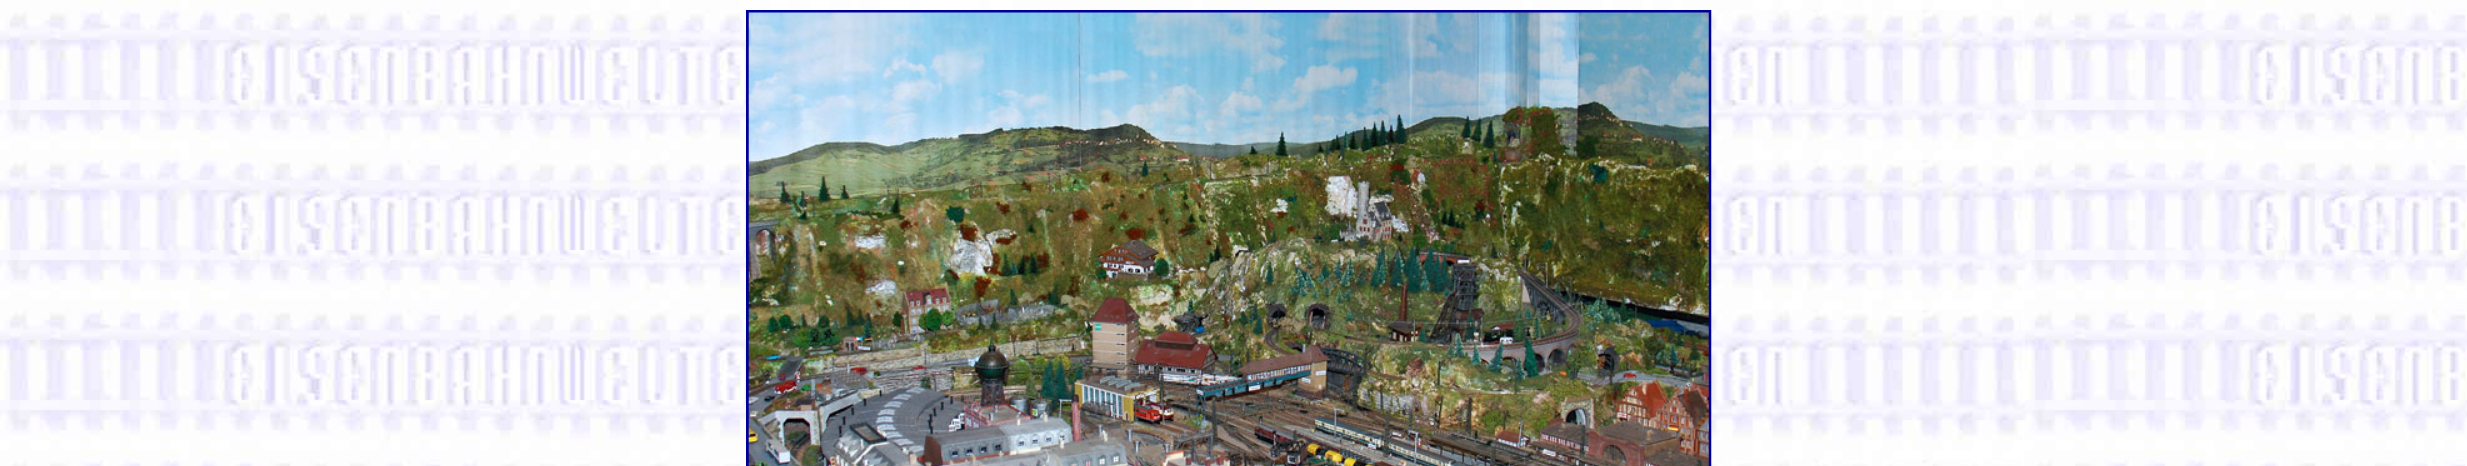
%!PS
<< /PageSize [2467 466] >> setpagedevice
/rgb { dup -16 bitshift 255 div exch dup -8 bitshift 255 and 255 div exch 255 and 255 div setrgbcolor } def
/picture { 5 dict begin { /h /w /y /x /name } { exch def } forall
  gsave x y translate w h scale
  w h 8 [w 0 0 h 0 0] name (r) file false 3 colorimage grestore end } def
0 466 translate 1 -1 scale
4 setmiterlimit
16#FFFFFF rgb
0 0 2467 466 rectfill
(pic1.raw) 0 0 2467 466 picture
16#000099 rgb
3 setlinewidth
747.5 11.5 962 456 rectstroke
(pic2.raw) 748 12 961 454 picture
showpage
